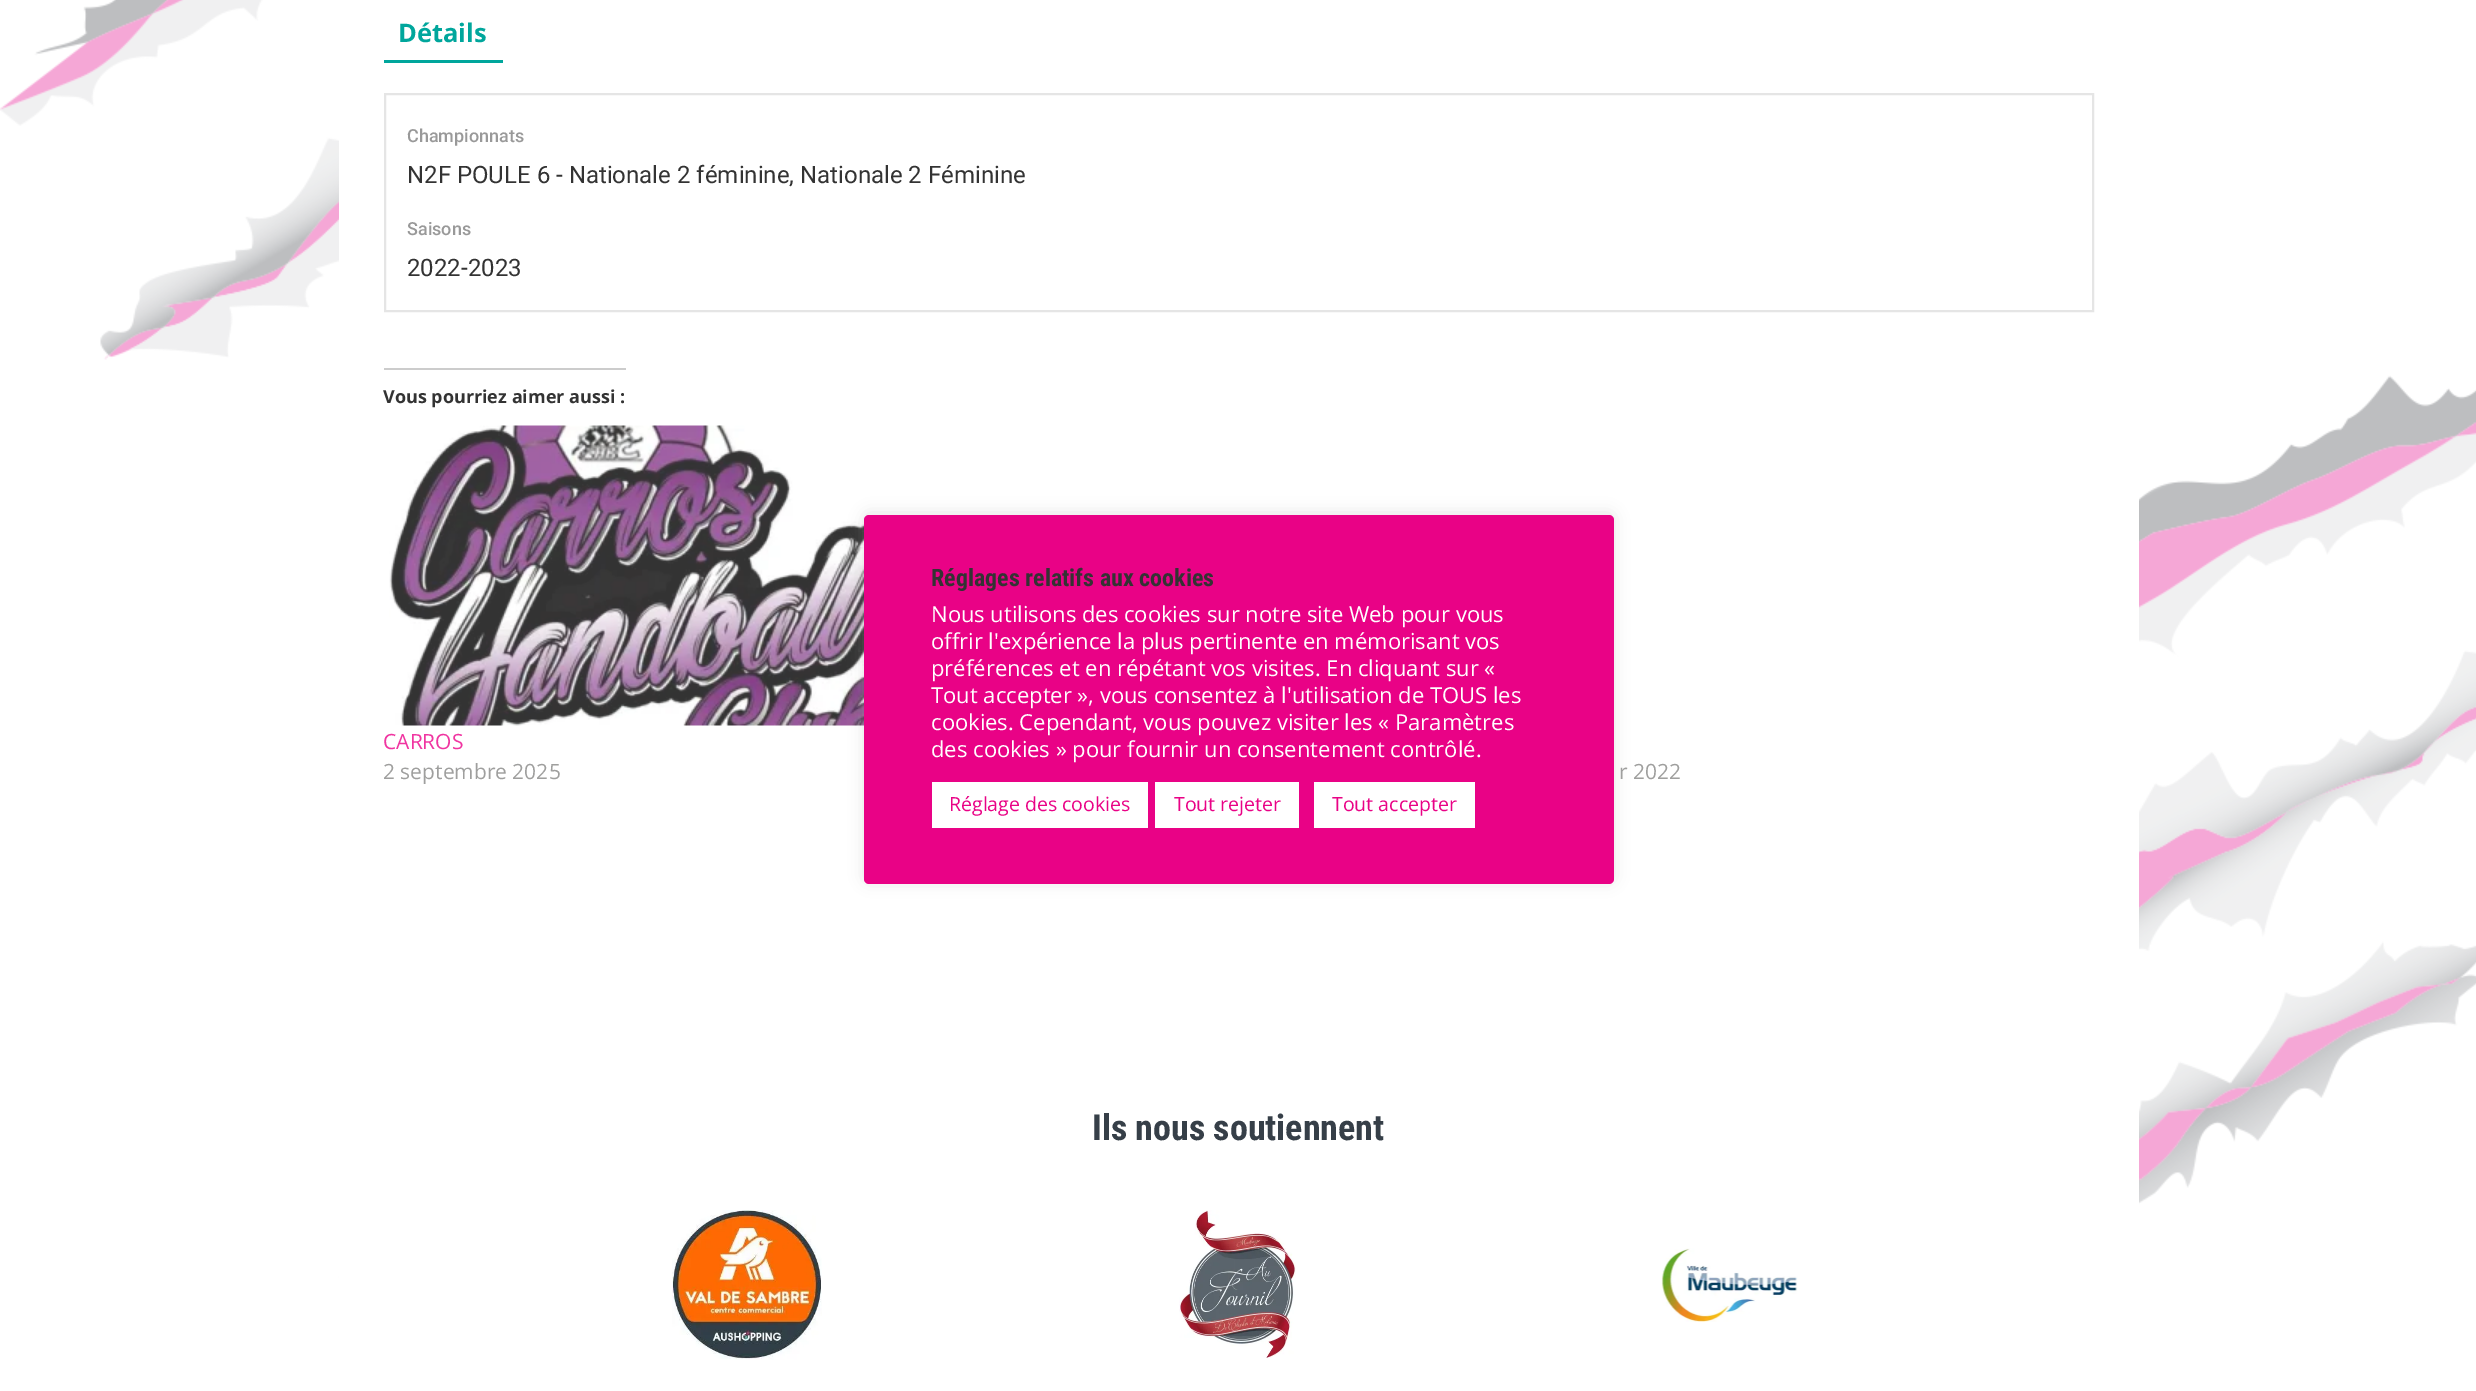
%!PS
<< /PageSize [2476 1391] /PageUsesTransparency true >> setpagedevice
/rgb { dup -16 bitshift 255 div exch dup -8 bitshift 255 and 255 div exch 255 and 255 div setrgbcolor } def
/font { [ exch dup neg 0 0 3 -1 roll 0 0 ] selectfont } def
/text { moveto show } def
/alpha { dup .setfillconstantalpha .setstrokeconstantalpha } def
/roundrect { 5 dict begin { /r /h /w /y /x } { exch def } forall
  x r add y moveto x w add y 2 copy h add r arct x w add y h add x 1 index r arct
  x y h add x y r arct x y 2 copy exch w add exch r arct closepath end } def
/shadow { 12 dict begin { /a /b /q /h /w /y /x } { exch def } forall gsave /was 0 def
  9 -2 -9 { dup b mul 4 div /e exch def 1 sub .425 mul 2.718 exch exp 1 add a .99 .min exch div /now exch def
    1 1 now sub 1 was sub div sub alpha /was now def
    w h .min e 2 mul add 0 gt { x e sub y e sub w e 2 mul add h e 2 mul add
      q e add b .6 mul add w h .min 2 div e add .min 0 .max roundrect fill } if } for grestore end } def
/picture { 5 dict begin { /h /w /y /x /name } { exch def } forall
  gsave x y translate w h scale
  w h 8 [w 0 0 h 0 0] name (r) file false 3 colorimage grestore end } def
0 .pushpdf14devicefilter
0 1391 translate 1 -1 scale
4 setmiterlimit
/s1 { /OpenSans-Bold 25.5 font 16#00A69C rgb } def
/s2 { /Roboto-Medium 18 font 16#999999 rgb } def
/s3 { /Roboto-Regular 24 font 16#333333 rgb } def
/s4 { /OpenSans-Bold 18 font 16#333333 rgb } def
/s5 { /OpenSans-Regular 21 font 16#F035A1 rgb } def
/s6 { /OpenSans-Regular 21 font 16#9F9F9E rgb } def
/s7 { /RobotoCondensed-Bold 36 font 16#363F48 rgb } def
/s8 { /RobotoCondensed-Bold 24 font 16#333333 rgb } def
/s9 { /OpenSans-Regular 22 font 16#FFFFFF rgb } def
/s10 { /OpenSans-Regular 19.5 font 16#E90286 rgb } def
16#FFFFFF rgb
0 0 2476 1391 rectfill
(pic1.raw) 0 0 2476 1278 picture
339 0 1800 1278 rectfill
16#00A69C rgb
384 60 119 3 rectfill
s1
(Détails) 398 42 text
16#E5E5E5 rgb
2 setlinewidth
385 94 1708 217 rectstroke
s2
(Championnats) 407 142 text
s3
(N2F POULE 6 - Nationale 2 féminine, Nationale 2 Féminine) 407 183 text
s2
(Saisons) 407 235 text
s3
(2022-2023) 407 276 text
16#CCCCCC rgb
384 368 242 2 rectfill
s4
(Vous pourriez aimer aussi :) 383 403 text
(pic2.raw) 389 425 520 301 picture
s5
(CARROS) 383 749 text
s6
(2 septembre 2025) 383 779 text
(r 2022) 1619 779 text
s7
(Ils nous soutiennent) 1092 1140 text
(pic3.raw) 672 1210 150 150 picture
(pic4.raw) 1179 1210 117 148 picture
(pic5.raw) 1661 1248 137 74 picture
16#ACABAB rgb
864 513 750 369 5 7.5 0.3 shadow
16#E90286 rgb
864 515 750 369 5 roundrect fill
s8
(Réglages relatifs aux cookies) 931 586 text
s9
(Nous utilisons des cookies sur notre site Web pour vous) 931 622 text
(offrir l'expérience la plus pertinente en mémorisant vos) 931 649 text
(préférences et en répétant vos visites. En cliquant sur «) 931 676 text
(Tout accepter », vous consentez à l'utilisation de TOUS les) 931 703 text
(cookies. Cependant, vous pouvez visiter les « Paramètres) 931 730 text
(des cookies » pour fournir un consentement contrôlé.) 931 757 text
932 782 216 46 rectfill
s10
(Réglage des cookies) 949 811 text
16#FFFFFF rgb
1155 782 144 46 rectfill
s10
(Tout rejeter) 1174 811 text
16#FFFFFF rgb
1314 782 161 46 rectfill
s10
(Tout accepter) 1332 811 text
.poppdf14devicefilter showpage
